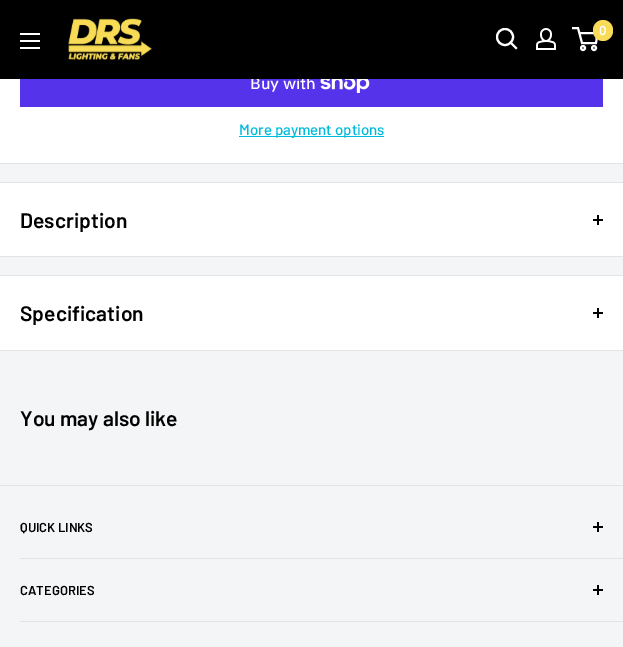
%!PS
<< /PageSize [623 647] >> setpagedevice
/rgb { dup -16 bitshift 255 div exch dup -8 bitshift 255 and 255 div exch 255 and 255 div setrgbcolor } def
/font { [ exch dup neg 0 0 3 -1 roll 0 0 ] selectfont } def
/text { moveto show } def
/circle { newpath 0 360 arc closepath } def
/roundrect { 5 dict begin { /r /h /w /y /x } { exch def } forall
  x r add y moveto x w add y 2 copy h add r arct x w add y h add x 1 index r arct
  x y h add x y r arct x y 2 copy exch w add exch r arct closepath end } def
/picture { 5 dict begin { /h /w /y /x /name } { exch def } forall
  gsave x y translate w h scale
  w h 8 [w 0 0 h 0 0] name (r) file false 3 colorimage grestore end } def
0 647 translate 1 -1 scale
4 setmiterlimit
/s1 { /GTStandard-Medium 16 font 16#FFFFFF rgb } def
/s2 { /Barlow-SemiBold 13 font 16#FFFFFF rgb } def
/s3 { /Barlow-Medium 15 font 16#00BADB rgb } def
/s4 { /Barlow-SemiBold 21 font 16#000000 rgb } def
/s5 { /Barlow-SemiBold 13 font 16#000000 rgb } def
16#F3F5F6 rgb
0 0 623 647 rectfill
16#FFFFFF rgb
0 79 623 84 rectfill
16#5433EB rgb
20 79 583 28 rectfill
s1
(Buy with) 250 89 text
16#000000 rgb
0 0 623 79 rectfill
(pic1.raw) 68 18 84 42 picture
16#FFFFFF rgb
2.1 setlinewidth
2 setlinecap
516 48 moveto 510.5 42.5 lineto stroke
0 setlinecap
505 37 8 circle stroke
(pic2.raw) 536 28 20 22 picture
2 setlinewidth
583 48 2 circle stroke
594 48 2 circle stroke
579.5 33 moveto 597.5 33 lineto 596 43 lineto 582 43 lineto 578 28 lineto 572 28 lineto stroke
16#F8DB56 rgb
593 20 20 21 10 roundrect fill
s2
(0) 599 35 text
(pic3.raw) 20 33 20 16 picture
16#E1E3E4 rgb
0 163 623 1 rectfill
(pic4.raw) 320 79 50 14 picture
16#00BADB rgb
239 136 145 1 rectfill
s3
(More payment options) 239 135 text
16#FFFFFF rgb
0 183 623 73 rectfill
16#E1E3E4 rgb
0 182 623 1 rectfill
0 256 623 1 rectfill
s4
(Description) 20 228 text
597 215 2 10 rectfill
593 219 10 2 rectfill
16#FFFFFF rgb
0 276 623 74 rectfill
16#E1E3E4 rgb
0 275 623 1 rectfill
0 350 623 1 rectfill
s4
(Specification) 20 321 text
597 308 2 10 rectfill
593 312 10 2 rectfill
(You may also like) 20 426 text
16#E1E3E4 rgb
0 485 623 1 rectfill
20 558 603 1 rectfill
s5
(QUICK LINKS) 20 532 text
597 522 2 10 rectfill
593 526 10 2 rectfill
16#E1E3E4 rgb
20 621 603 1 rectfill
s5
(CATEGORIES) 20 595 text
597 585 2 10 rectfill
593 589 10 2 rectfill
showpage
